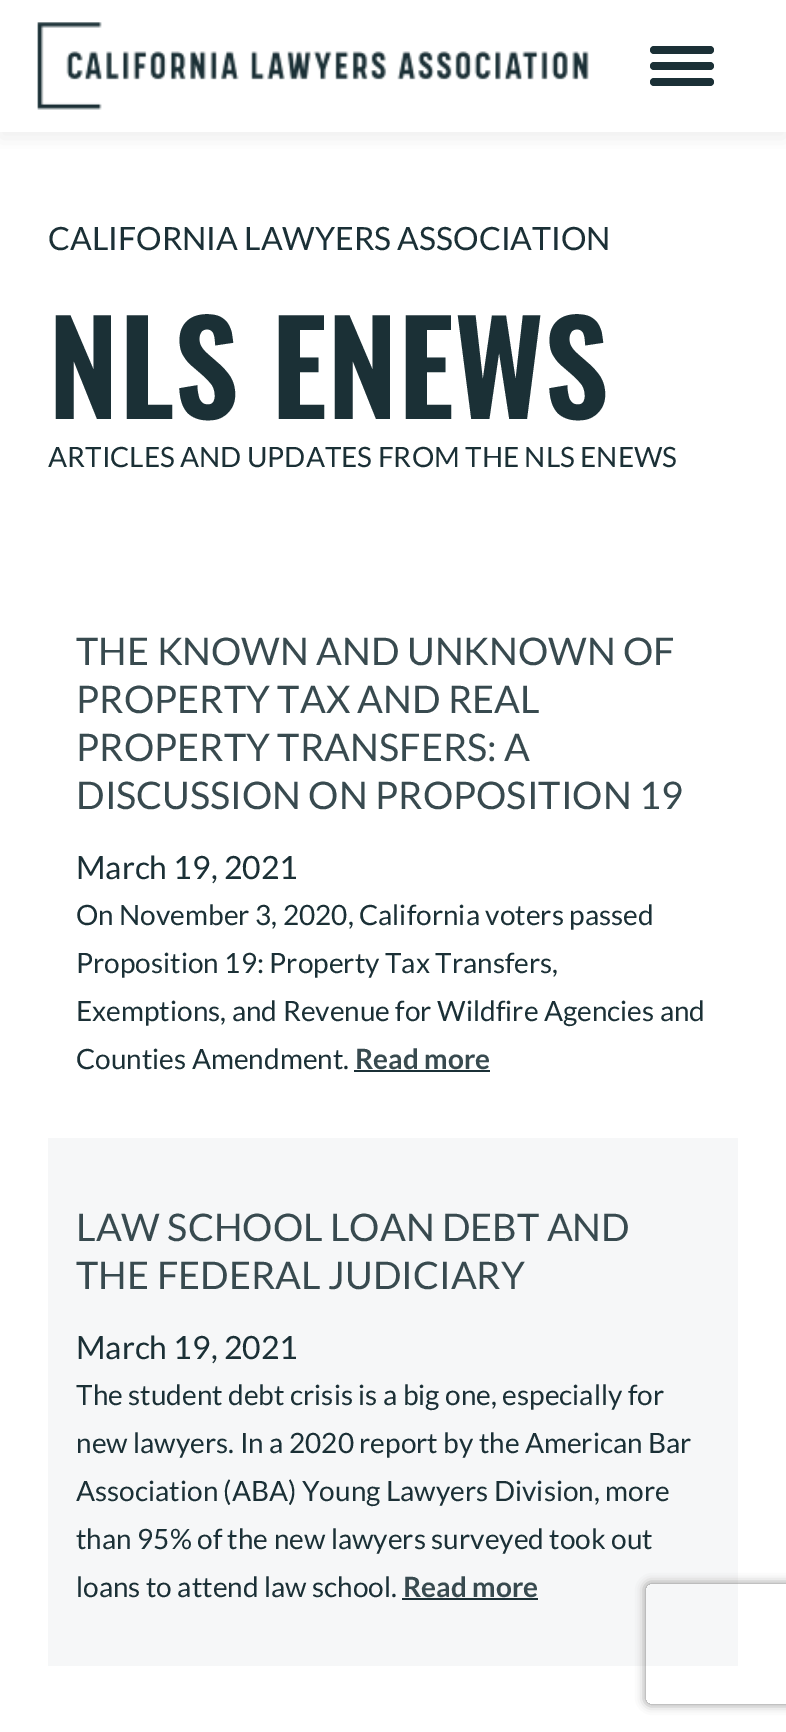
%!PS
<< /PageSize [786 1732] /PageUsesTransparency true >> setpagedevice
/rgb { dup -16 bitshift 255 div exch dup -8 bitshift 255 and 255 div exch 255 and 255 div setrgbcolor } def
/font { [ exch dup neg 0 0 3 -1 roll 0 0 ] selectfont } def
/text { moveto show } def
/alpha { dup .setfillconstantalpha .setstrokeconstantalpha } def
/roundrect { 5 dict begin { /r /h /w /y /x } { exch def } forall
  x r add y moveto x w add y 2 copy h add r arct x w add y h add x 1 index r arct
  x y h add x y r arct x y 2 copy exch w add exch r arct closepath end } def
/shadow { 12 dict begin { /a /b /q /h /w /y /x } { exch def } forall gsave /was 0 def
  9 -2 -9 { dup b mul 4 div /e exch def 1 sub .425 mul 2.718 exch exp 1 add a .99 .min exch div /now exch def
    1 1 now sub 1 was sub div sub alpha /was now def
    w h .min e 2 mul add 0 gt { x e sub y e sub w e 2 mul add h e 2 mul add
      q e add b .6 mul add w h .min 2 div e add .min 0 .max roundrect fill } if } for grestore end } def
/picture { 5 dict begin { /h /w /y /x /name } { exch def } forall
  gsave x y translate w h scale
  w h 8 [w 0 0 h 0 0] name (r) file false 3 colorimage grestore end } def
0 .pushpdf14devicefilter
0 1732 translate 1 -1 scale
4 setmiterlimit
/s1 { /Lato-Regular 32 font 16#1B3036 rgb } def
/s2 { /Oswald-SemiBold 128 font 16#1B3036 rgb } def
/s3 { /Lato-Regular 28 font 16#1B3036 rgb } def
/s4 { /Lato-Regular 38 font 16#384A4F rgb } def
/s5 { /Lato-Bold 28 font 16#384A4F rgb } def
16#FFFFFF rgb
0 0 786 1732 rectfill
gsave
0 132 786 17 rectclip
16#888888 rgb
0 6 786 132 0 10 0.15 shadow
grestore
(pic1.raw) 37 22 552 88 picture
16#1B3036 rgb
650 46 64 8 4 roundrect fill
650 62 64 8 4 roundrect fill
650 78 64 8 4 roundrect fill
s1
(CALIFORNIA LAWYERS ASSOCIATION) 48 250 text
s2
(NLS ENEWS) 48 419 text
s3
(ARTICLES AND UPDATES FROM THE NLS ENEWS) 48 467 text
s4
(THE KNOWN AND UNKNOWN OF) 76 665 text
(PROPERTY TAX AND REAL) 76 713 text
(PROPERTY TRANSFERS: A) 76 761 text
(DISCUSSION ON PROPOSITION 19) 76 809 text
s1
(March 19, 2021) 76 879 text
s3
(On November 3, 2020, California voters passed) 76 925 text
(Proposition 19: Property Tax Transfers,) 76 973 text
(Exemptions, and Revenue for Wildfire Agencies and) 76 1021 text
(Counties Amendment.) 76 1069 text
s5
(Read more) 355 1069 text
16#1B3036 rgb
354 1070 136 2 rectfill
16#F6F7F8 rgb
48 1138 690 528 rectfill
s4
(LAW SCHOOL LOAN DEBT AND) 76 1241 text
(THE FEDERAL JUDICIARY) 76 1289 text
s1
(March 19, 2021) 76 1359 text
s3
(The student debt crisis is a big one, especially for) 76 1405 text
(new lawyers. In a 2020 report by the American Bar) 76 1453 text
(Association \(ABA\) Young Lawyers Division, more) 76 1501 text
(than 95% of the new lawyers surveyed took out) 76 1549 text
(loans to attend law school.) 76 1597 text
s5
(Read more) 403 1597 text
16#1B3036 rgb
402 1598 136 2 rectfill
gsave
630 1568 moveto 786 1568 lineto 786 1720 lineto 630 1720 lineto closepath 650 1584 moveto 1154 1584 lineto 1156 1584 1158 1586 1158 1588 curveto 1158 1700 lineto 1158 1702 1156 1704 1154 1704 curveto 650 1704 lineto 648 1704 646 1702 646 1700 curveto 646 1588 lineto 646 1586 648 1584 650 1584 curveto closepath eoclip newpath
16#808080 rgb
646 1584 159 120 4 5 1 shadow
grestore
.poppdf14devicefilter showpage
